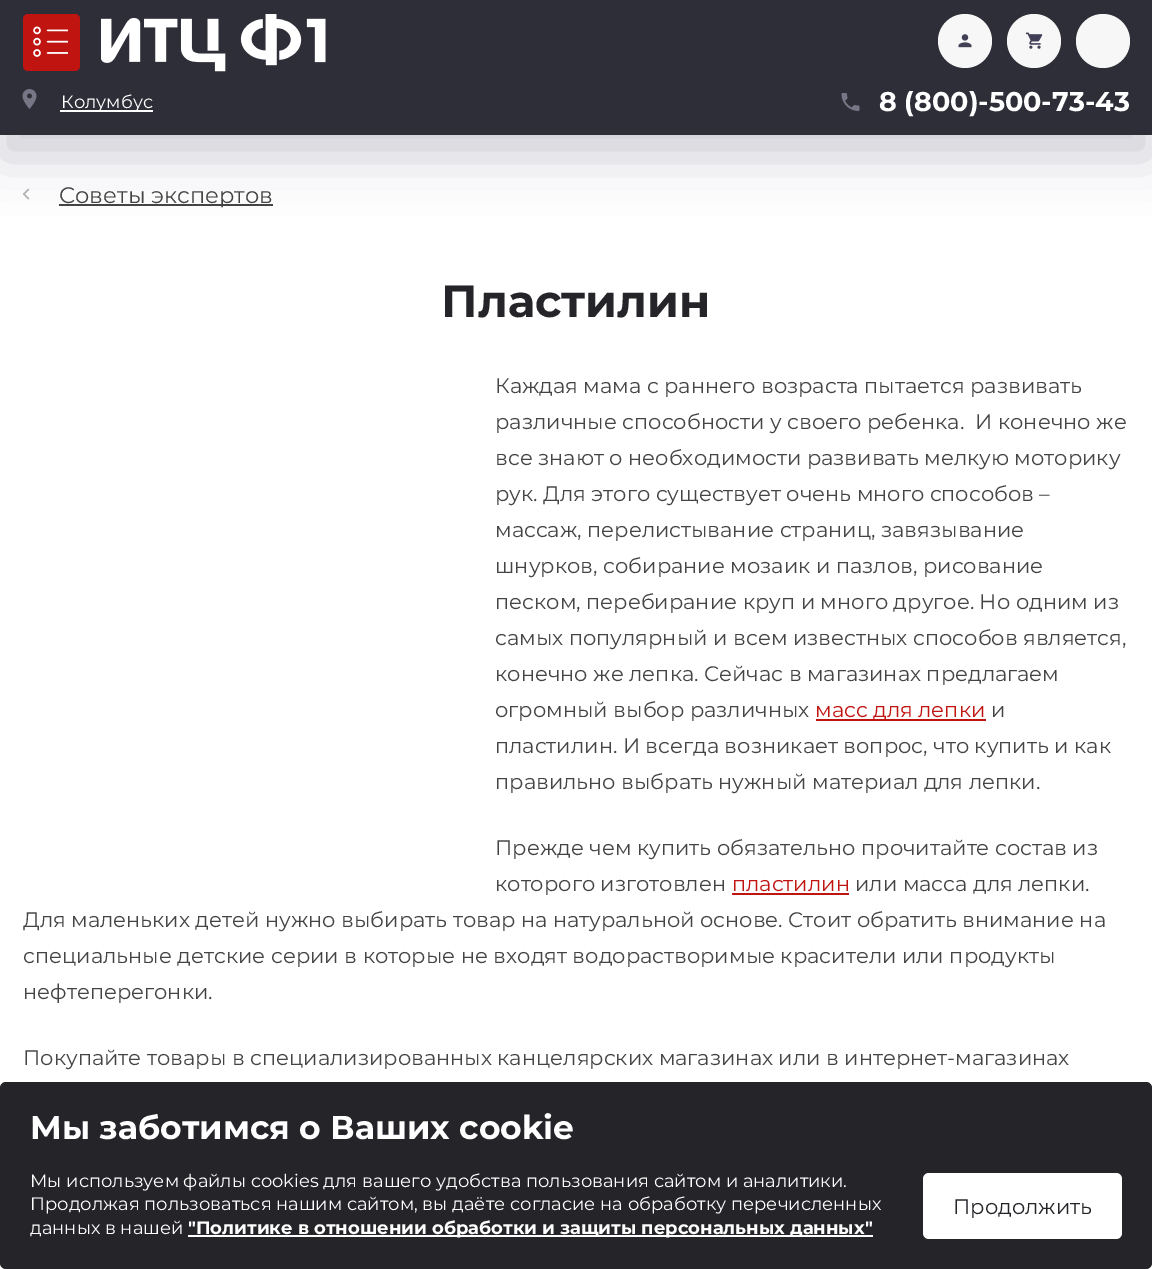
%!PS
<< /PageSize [1152 1269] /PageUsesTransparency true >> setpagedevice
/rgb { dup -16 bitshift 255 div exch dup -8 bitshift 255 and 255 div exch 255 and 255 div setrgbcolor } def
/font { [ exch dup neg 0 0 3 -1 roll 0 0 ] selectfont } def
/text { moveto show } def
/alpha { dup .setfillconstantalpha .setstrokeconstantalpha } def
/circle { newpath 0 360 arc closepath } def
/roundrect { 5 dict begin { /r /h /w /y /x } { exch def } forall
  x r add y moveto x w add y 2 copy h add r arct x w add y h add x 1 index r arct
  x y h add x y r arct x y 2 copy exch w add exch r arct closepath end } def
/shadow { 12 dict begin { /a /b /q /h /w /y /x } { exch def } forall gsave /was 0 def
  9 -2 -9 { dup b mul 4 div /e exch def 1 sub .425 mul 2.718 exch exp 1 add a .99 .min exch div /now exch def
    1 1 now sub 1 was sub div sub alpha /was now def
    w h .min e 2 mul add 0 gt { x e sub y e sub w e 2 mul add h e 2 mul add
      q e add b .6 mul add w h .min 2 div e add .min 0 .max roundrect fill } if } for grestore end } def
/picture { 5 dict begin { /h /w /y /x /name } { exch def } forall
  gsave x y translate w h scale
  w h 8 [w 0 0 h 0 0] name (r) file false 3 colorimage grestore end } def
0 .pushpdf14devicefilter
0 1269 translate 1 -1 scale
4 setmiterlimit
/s1 { /Montserrat-Regular 18 font 16#FFFFFF rgb } def
/s2 { /Montserrat-Bold 27 font 16#FFFFFF rgb } def
/s3 { /Montserrat-Regular 22.5 font 16#454445 rgb } def
/s4 { /Montserrat-Bold 45 font 16#242429 rgb } def
/s5 { /Montserrat-Regular 21 font 16#454445 rgb } def
/s6 { /Montserrat-Regular 21 font 16#C01411 rgb } def
/s7 { /Montserrat-Bold 33 font 16#FFFFFF rgb } def
/s8 { /Montserrat-Bold 18 font 16#FFFFFF rgb } def
/s9 { /Montserrat-Regular 21 font 16#242429 rgb } def
16#FFFFFF rgb
0 0 1152 1269 rectfill
(pic7.raw) 23 188 7 12 picture
16#454445 rgb
59 204 214 2 rectfill
16#413F56 rgb
0 23 1152 135 0 26 0.25 shadow
16#2E2E38 rgb
0 0 1152 135 rectfill
16#C01411 rgb
23 14 57 57 5 roundrect fill
(pic1.raw) 33 26 35 31 picture
(pic2.raw) 101 14 225 58 picture
16#F7F7F7 rgb
965 41 27 circle fill
(pic3.raw) 958 34 14 14 picture
1034 41 27 circle fill
(pic4.raw) 1026 32 17 17 picture
1103 41 27 circle fill
(pic5.raw) 22 89 15 20 picture
16#FFFFFF rgb
60 110 93 2 rectfill
s1
(Колумбус) 61 108 text
(pic6.raw) 841 93 19 18 picture
s2
(8 \(800\)-500-73-43) 879 111 text
s3
(Советы экспертов) 59 203 text
s4
(Пластилин) 441 317 text
s5
(Каждая мама с раннего возраста пытается развивать) 495 393 text
(различные способности у своего ребенка.  И конечно же) 495 429 text
(все знают о необходимости развивать мелкую моторику) 495 465 text
(рук. Для этого существует очень много способов –) 495 501 text
(массаж, перелистывание страниц, завязывание) 495 537 text
(шнурков, собирание мозаик и пазлов, рисование) 495 573 text
(песком, перебирание круп и много другое. Но одним из) 495 609 text
(самых популярный и всем известных способов является,) 495 645 text
(конечно же лепка. Сейчас в магазинах предлагаем) 495 681 text
(огромный выбор различных) 495 717 text
16#C01411 rgb
816 719 170 2 rectfill
(масс для лепки) 815 717 text
s5
(и) 991 717 text
(пластилин. И всегда возникает вопрос, что купить и как) 495 753 text
(правильно выбрать нужный материал для лепки.) 495 789 text
(Прежде чем купить обязательно прочитайте состав из) 495 855 text
(которого изготовлен) 495 891 text
s6
(пластилин) 732 891 text
732 893 117 2 rectfill
s5
(или масса для лепки.) 855 891 text
(Для маленьких детей нужно выбирать товар на натуральной основе. Стоит обратить внимание на) 23 927 text
(специальные детские серии в которые не входят водорастворимые красители или продукты) 23 963 text
(нефтеперегонки.) 23 999 text
(Покупайте товары в специализированных канцелярских магазинах или в интернет-магазинах) 23 1065 text
16#242429 rgb
0 1082 1152 187 6 roundrect fill
s7
(Мы заботимся о Ваших cookie) 30 1139 text
s1
(Мы используем файлы cookies для вашего удобства пользования сайтом и аналитики.) 30 1187 text
(Продолжая пользоваться нашим сайтом, вы даёте согласие на обработку перечисленных) 30 1210 text
(данных в нашей) 30 1234 text
188 1235 685 2 rectfill
s8
("Политике в отношении обработки и защиты персональных данных") 188 1234 text
923 1173 199 66 6 roundrect fill
s9
(Продолжить) 953 1214 text
.poppdf14devicefilter showpage
